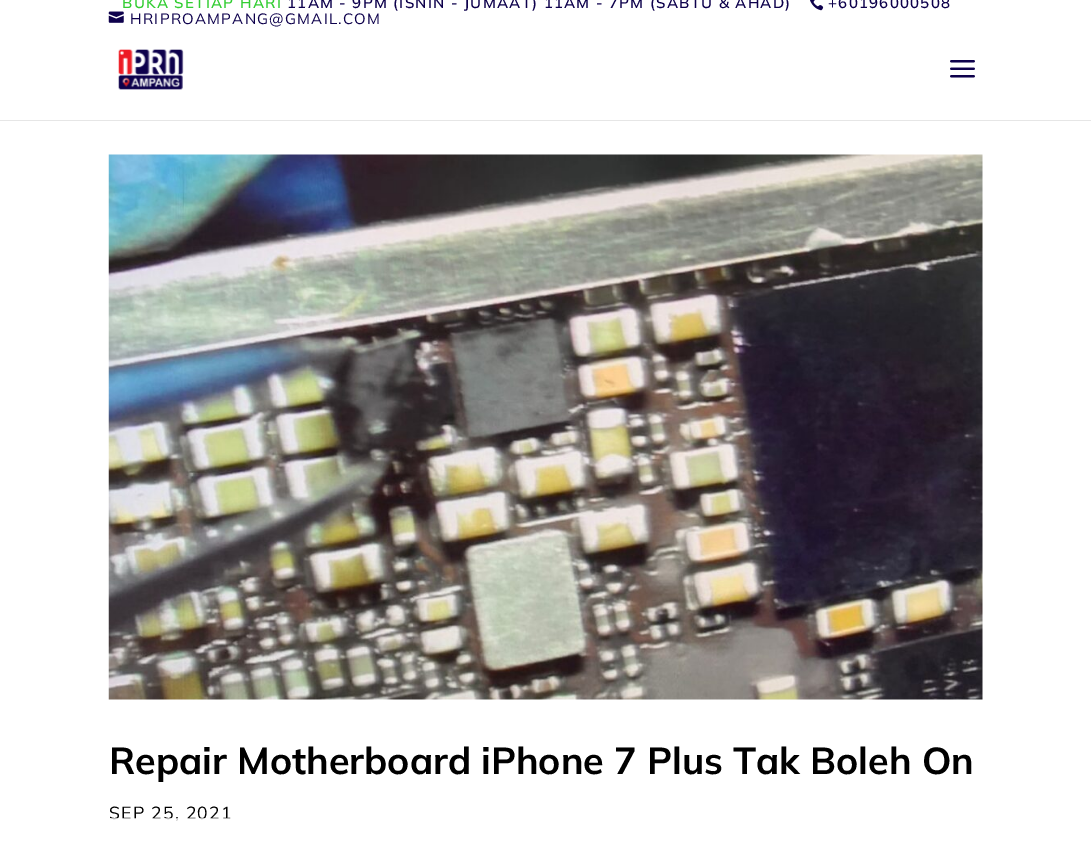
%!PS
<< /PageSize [1091 849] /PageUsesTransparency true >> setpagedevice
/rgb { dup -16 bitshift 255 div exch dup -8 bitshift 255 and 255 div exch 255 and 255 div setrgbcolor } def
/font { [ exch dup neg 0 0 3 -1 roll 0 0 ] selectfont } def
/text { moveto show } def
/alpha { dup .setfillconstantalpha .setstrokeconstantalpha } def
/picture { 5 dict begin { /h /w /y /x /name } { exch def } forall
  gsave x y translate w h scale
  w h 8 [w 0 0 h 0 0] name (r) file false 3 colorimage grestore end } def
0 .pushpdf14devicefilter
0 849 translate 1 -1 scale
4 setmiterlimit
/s1 { /Mulish-ExtraLight 37.5 font 16#000000 rgb } def
16#FFFFFF rgb
0 0 1091 849 rectfill
/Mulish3-ExtraLight 15 font
16#32CD32 rgb
122 8 moveto 1.25 0 (BUKA SETIAP HARI) ashow
16#0E014C rgb
287 8 moveto 1.25 0 (11AM - 9PM \(ISNIN - JUMAAT\) 11AM - 7PM \(SABTU & AHAD\)) ashow
(pic1.raw) 810 0 14 11 picture
828 8 moveto 1.25 0 (+60196000508) ashow
(pic2.raw) 108 11 16 12 picture
/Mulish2-ExtraLight 15 font
130 24 moveto 1.25 0 (HRIPROAMPANG@GMAIL.COM) ashow
16#E6E6E6 rgb
0 120 1091 1 rectfill
(pic3.raw) 118 49 66 41 picture
(pic4.raw) 950 60 25 18 picture
(pic5.raw) 108 154 875 546 picture
s1
(Repair Motherboard iPhone 7 Plus Tak Boleh On) 109 774 text
/Mulish2-ExtraLight 17.5 font
109 819 moveto 1.25 0 (SEP 25, 2021) ashow
0.71 alpha
16#FFFFFF rgb
110 818 121 3 rectfill
.poppdf14devicefilter showpage
